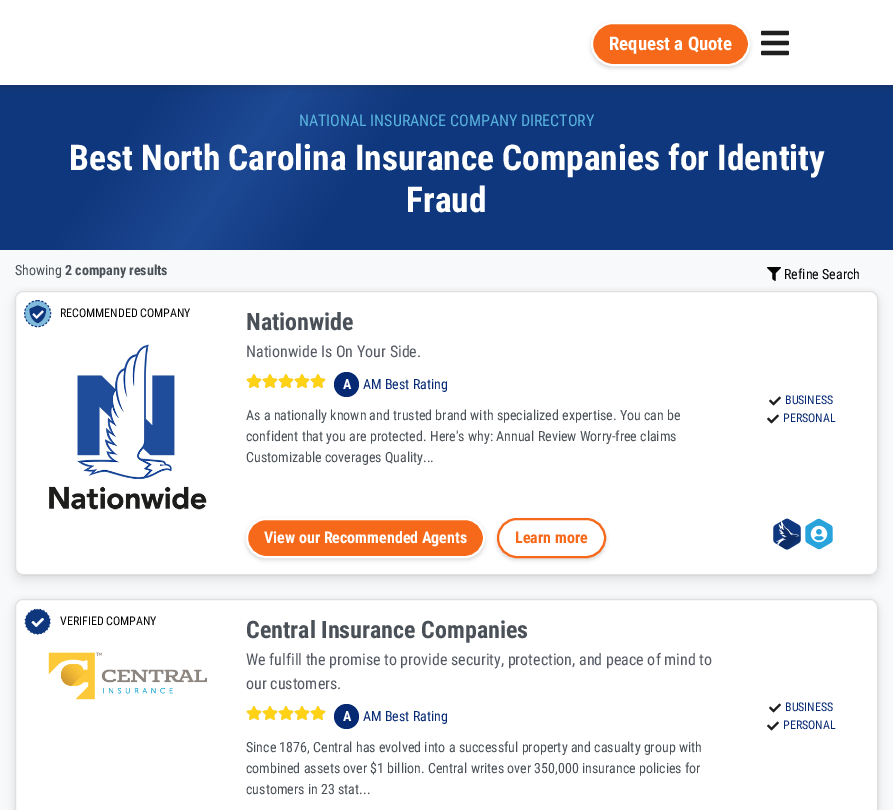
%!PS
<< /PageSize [893 810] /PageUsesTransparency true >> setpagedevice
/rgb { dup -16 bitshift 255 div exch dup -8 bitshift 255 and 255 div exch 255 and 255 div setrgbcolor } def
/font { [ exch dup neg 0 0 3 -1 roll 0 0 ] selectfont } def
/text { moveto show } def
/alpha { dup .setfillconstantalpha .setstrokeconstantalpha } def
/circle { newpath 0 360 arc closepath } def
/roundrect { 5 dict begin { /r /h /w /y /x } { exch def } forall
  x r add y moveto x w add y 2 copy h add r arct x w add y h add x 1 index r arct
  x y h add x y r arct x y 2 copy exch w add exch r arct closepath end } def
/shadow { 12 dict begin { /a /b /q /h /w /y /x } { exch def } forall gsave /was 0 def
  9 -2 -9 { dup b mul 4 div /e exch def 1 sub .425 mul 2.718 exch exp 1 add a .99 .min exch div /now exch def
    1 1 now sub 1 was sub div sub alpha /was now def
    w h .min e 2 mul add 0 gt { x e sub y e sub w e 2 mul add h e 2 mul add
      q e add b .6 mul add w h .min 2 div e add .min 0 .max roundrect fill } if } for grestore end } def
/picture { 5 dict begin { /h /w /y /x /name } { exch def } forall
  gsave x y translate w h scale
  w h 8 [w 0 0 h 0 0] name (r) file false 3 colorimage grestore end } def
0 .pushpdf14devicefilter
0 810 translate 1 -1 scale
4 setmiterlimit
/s1 { /RobotoCondensed-Bold 18.75 font 16#FFFFFF rgb } def
/s2 { /RobotoCondensed-Regular 16 font 16#58B2DD rgb } def
/s3 { /RobotoCondensed-Bold 35.4 font 16#FFFFFF rgb } def
/s4 { /RobotoCondensed-Regular 14 font 16#495057 rgb } def
/s5 { /RobotoCondensed-Bold 14 font 16#495057 rgb } def
/s6 { /RobotoCondensed-Regular 14 font 16#030303 rgb } def
/s7 { /RobotoCondensed-Regular 12 font 16#030303 rgb } def
/s8 { /RobotoCondensed-Bold 24 font 16#495057 rgb } def
/s9 { /RobotoCondensed-Regular 16 font 16#545963 rgb } def
/s10 { /RobotoCondensed-Bold 14 font 16#FFFFFF rgb } def
/s11 { /RobotoCondensed-Regular 14 font 16#062974 rgb } def
/s12 { /RobotoCondensed-Regular 12 font 16#062974 rgb } def
/s13 { /RobotoCondensed-Bold 16 font 16#FFFFFF rgb } def
/s14 { /RobotoCondensed-Bold 16 font 16#F6691A rgb } def
16#F8F9FA rgb
0 0 893 810 rectfill
gsave 0 85 moveto 893 85 lineto 893 250 lineto 0 250 lineto closepath clip newpath
<< /ShadingType 2 /ColorSpace /DeviceRGB /Coords [108 -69 785 404] /Extend [true true] /Function << /FunctionType 3 /Domain [0 1] /Functions [<< /FunctionType 2 /Domain [0 1] /C0 [0.059 0.216 0.49] /C1 [0.059 0.216 0.49] /N 1 >> << /FunctionType 2 /Domain [0 1] /C0 [0.059 0.216 0.49] /C1 [0.114 0.286 0.58] /N 1 >> << /FunctionType 2 /Domain [0 1] /C0 [0.114 0.286 0.58] /C1 [0.059 0.216 0.49] /N 1 >> << /FunctionType 2 /Domain [0 1] /C0 [0.059 0.216 0.49] /C1 [0.059 0.216 0.49] /N 1 >>] /Bounds [0.16 0.29 0.42] /Encode [0 1 0 1 0 1 0 1] >> >> shfill grestore
16#292929 rgb
0 2 893 85 0 3.5 0.25 shadow
16#FFFFFF rgb
0 0 893 85 rectfill
16#000000 rgb
591 24 159 44 22 2 0.15 shadow
16#F6691A rgb
592 23 157 42 21 roundrect gsave fill grestore
16#FFFFFF rgb
2 setlinewidth
stroke
s1
(Request a Quote) 609 50 text
(pic1.raw) 761 30 28 26 picture
s2
(NATIONAL INSURANCE COMPANY DIRECTORY) 299 126 text
s3
(Best North Carolina Insurance Companies for Identity) 69 170 text
(Fraud) 406 212 text
s4
(Showing) 15 275 text
s5
(2 company results) 65 275 text
(pic2.raw) 767 267 14 14 picture
s6
(Refine Search) 784 279 text
16#000000 rgb
15 291 863 284 8 3 0.05 shadow
15 297 863 284 8 5 0.08 shadow
16#FFFFFF rgb
15 291 863 284 8 roundrect fill
0.12 alpha
16#000000 rgb
1 setlinewidth
15.5 291.5 862 283 7.5 roundrect stroke
1 alpha
(pic3.raw) 24 300 28 28 picture
s7
(RECOMMENDED COMPANY) 60 317 text
(pic4.raw) 49 344 158 166 picture
s8
(Nationwide) 246 330 text
s9
(Nationwide Is On Your Side.) 246 357 text
(pic5.raw) 246 374 80 14 picture
(pic6.raw) 246 374 80 14 picture
16#062974 rgb
346.5 384.5 12.5 circle fill
s10
(A) 343 389 text
s11
(AM Best Rating) 363 389 text
s4
(As a nationally known and trusted brand with specialized expertise. You can be) 246 420 text
(confident that you are protected. Here's why: Annual Review Worry-free claims) 246 441 text
(Customizable coverages Quality...) 246 462 text
(pic7.raw) 769 396 12 10 picture
s12
(BUSINESS) 785 404 text
(pic7.raw) 767 414 12 10 picture
(PERSONAL) 783 422 text
16#000000 rgb
246 520 239 40 20 2 0.15 shadow
16#F6691A rgb
247 519 237 38 19 roundrect gsave fill grestore
16#FFFFFF rgb
2 setlinewidth
stroke
s13
(View our Recommended Agents) 264 543 text
gsave
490 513 moveto 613 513 lineto 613 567 lineto 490 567 lineto closepath 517 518 moveto 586 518 lineto 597 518 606 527 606 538 curveto 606 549 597 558 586 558 curveto 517 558 lineto 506 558 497 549 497 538 curveto 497 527 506 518 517 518 curveto closepath eoclip newpath
16#000000 rgb
497 520 109 40 20 2 0.15 shadow
grestore
16#F6691A rgb
498 519 107 38 19 roundrect stroke
(Learn more) 515 543 text
(pic8.raw) 773 518 28 32 picture
(pic9.raw) 805 518 28 32 picture
16#000000 rgb
15 599 863 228 8 3 0.05 shadow
15 605 863 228 8 5 0.08 shadow
16#FFFFFF rgb
15 599 863 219 8 roundrect fill
0.12 alpha
16#000000 rgb
1 setlinewidth
15.5 599.5 862 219 7.5 roundrect stroke
1 alpha
(pic10.raw) 24 608 27 27 picture
s7
(VERIFIED COMPANY) 60 625 text
(pic11.raw) 48 652 159 48 picture
s8
(Central Insurance Companies) 246 638 text
s9
(We fulfill the promise to provide security, protection, and peace of mind to) 246 665 text
(our customers.) 246 689 text
(pic5.raw) 246 706 80 14 picture
(pic6.raw) 246 706 80 14 picture
16#062974 rgb
346.5 716.5 12.5 circle fill
s10
(A) 343 721 text
s11
(AM Best Rating) 363 721 text
s4
(Since 1876, Central has evolved into a successful property and casualty group with) 246 752 text
(combined assets over $1 billion. Central writes over 350,000 insurance policies for) 246 773 text
(customers in 23 stat...) 246 794 text
(pic7.raw) 769 703 12 10 picture
s12
(BUSINESS) 785 711 text
(pic7.raw) 767 721 12 10 picture
(PERSONAL) 783 729 text
.poppdf14devicefilter showpage
